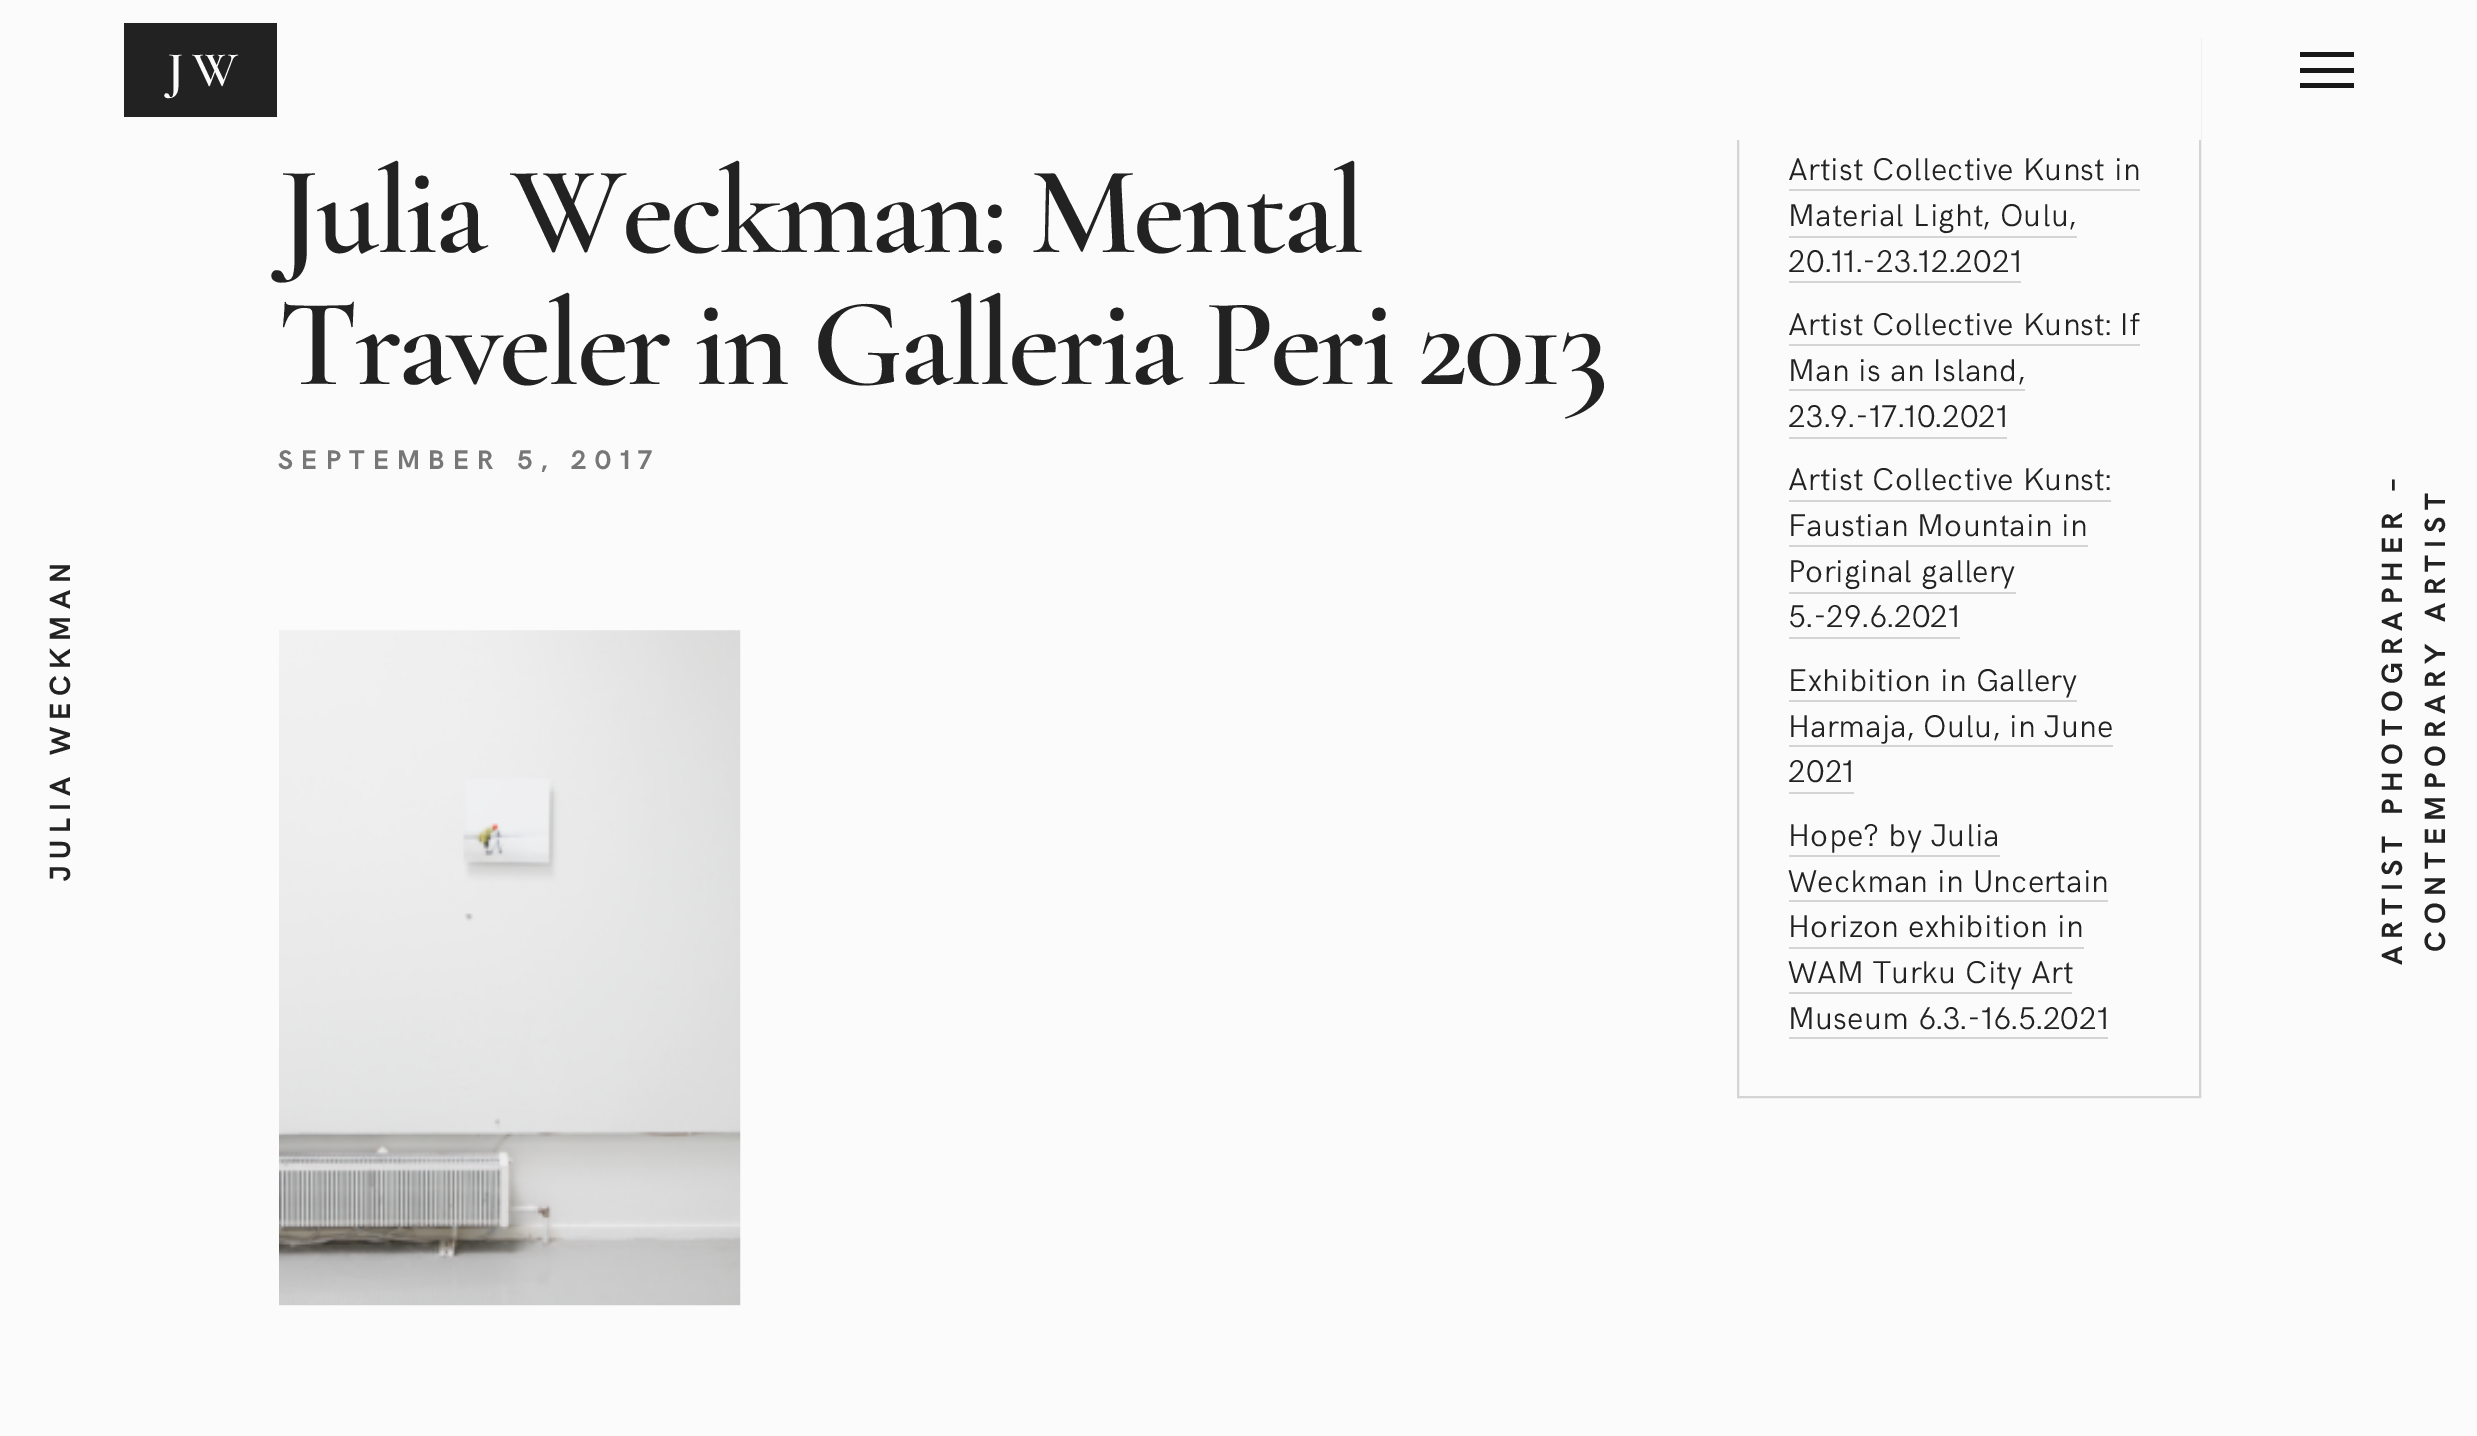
%!PS
<< /PageSize [2477 1436] >> setpagedevice
/rgb { dup -16 bitshift 255 div exch dup -8 bitshift 255 and 255 div exch 255 and 255 div setrgbcolor } def
/font { [ exch dup neg 0 0 3 -1 roll 0 0 ] selectfont } def
/picture { 5 dict begin { /h /w /y /x /name } { exch def } forall
  gsave x y translate w h scale
  w h 8 [w 0 0 h 0 0] name (r) file false 3 colorimage grestore end } def
0 1436 translate 1 -1 scale
4 setmiterlimit
16#FBFBFB rgb
0 0 2477 1436 rectfill
16#D4D4D4 rgb
2 setlinewidth
1738 39 462 1058 rectstroke
16#FBFBFB rgb
1737 38 464 102 rectfill
16#222222 rgb
124 23 153 94 rectfill
/CormorantGaramond-SemiBold 50 font
16#FBFBFB rgb
167 86 moveto 8 0 (JW) ashow
16#181818 rgb
2300 52 54 5 rectfill
2300 68 54 5 rectfill
2300 83 54 5 rectfill
/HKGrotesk-Bold 29.25 font
16#222222 rgb
gsave 70 881 translate -90 rotate 0 0 moveto 7 0 (JULIA WECKMAN) ashow grestore
/CormorantGaramond-SemiBold 126 font
278 252 moveto -3.75 0 (Julia Weckman: Mental) ashow
278 384 moveto -3.75 0 (Traveler in Galleria Peri 2013) ashow
/HKGrotesk-Bold 27 font
16#777777 rgb
278 469 moveto 8.6 0 (SEPTEMBER 5, 2017) ashow
(pic1.raw) 279 630 462 676 picture
/HKGrotesk-Light 31.5 font
16#222222 rgb
1788 180 moveto 0.25 0 (Artist Collective Kunst in) ashow
16#D4D4D4 rgb
1789 189 351 2 rectfill
16#222222 rgb
1788 226 moveto 0.25 0 (Material Light, Oulu,) ashow
16#D4D4D4 rgb
1789 236 288 2 rectfill
16#222222 rgb
1788 272 moveto 0.25 0 (20.11.-23.12.2021) ashow
16#D4D4D4 rgb
1789 281 232 2 rectfill
16#222222 rgb
1788 335 moveto 0.25 0 (Artist Collective Kunst: If) ashow
16#D4D4D4 rgb
1789 344 351 2 rectfill
16#222222 rgb
1788 381 moveto 0.25 0 (Man is an Island,) ashow
16#D4D4D4 rgb
1789 389 236 2 rectfill
16#222222 rgb
1788 427 moveto 0.25 0 (23.9.-17.10.2021) ashow
16#D4D4D4 rgb
1789 437 218 2 rectfill
16#222222 rgb
1788 490 moveto 0.25 0 (Artist Collective Kunst:) ashow
16#D4D4D4 rgb
1789 500 322 2 rectfill
16#222222 rgb
1788 536 moveto 0.25 0 (Faustian Mountain in) ashow
16#D4D4D4 rgb
1789 545 299 2 rectfill
16#222222 rgb
1788 582 moveto 0.25 0 (Poriginal gallery) ashow
16#D4D4D4 rgb
1789 592 227 2 rectfill
16#222222 rgb
1788 627 moveto 0.25 0 (5.-29.6.2021) ashow
16#D4D4D4 rgb
1789 637 171 2 rectfill
16#222222 rgb
1788 691 moveto 0.25 0 (Exhibition in Gallery) ashow
16#D4D4D4 rgb
1789 700 288 2 rectfill
16#222222 rgb
1788 737 moveto 0.25 0 (Harmaja, Oulu, in June) ashow
16#D4D4D4 rgb
1789 745 324 2 rectfill
16#222222 rgb
1788 782 moveto 0.25 0 (2021) ashow
16#D4D4D4 rgb
1789 792 65 2 rectfill
16#222222 rgb
1788 846 moveto 0.25 0 (Hope? by Julia) ashow
16#D4D4D4 rgb
1789 855 211 2 rectfill
16#222222 rgb
1788 892 moveto 0.25 0 (Weckman in Uncertain) ashow
16#D4D4D4 rgb
1789 900 319 2 rectfill
16#222222 rgb
1788 937 moveto 0.25 0 (Horizon exhibition in) ashow
16#D4D4D4 rgb
1789 947 295 2 rectfill
16#222222 rgb
1788 983 moveto 0.25 0 (WAM Turku City Art) ashow
16#D4D4D4 rgb
1789 992 283 2 rectfill
16#222222 rgb
1788 1029 moveto 0.25 0 (Museum 6.3.-16.5.2021) ashow
16#D4D4D4 rgb
1789 1037 319 2 rectfill
/HKGrotesk-Bold 29.25 font
16#222222 rgb
gsave 2402 965 translate -90 rotate 0 0 moveto 7 0 (ARTIST PHOTOGRAPHER –) ashow grestore
gsave 2445 952 translate -90 rotate 0 0 moveto 7 0 (CONTEMPORARY ARTIST) ashow grestore
showpage
